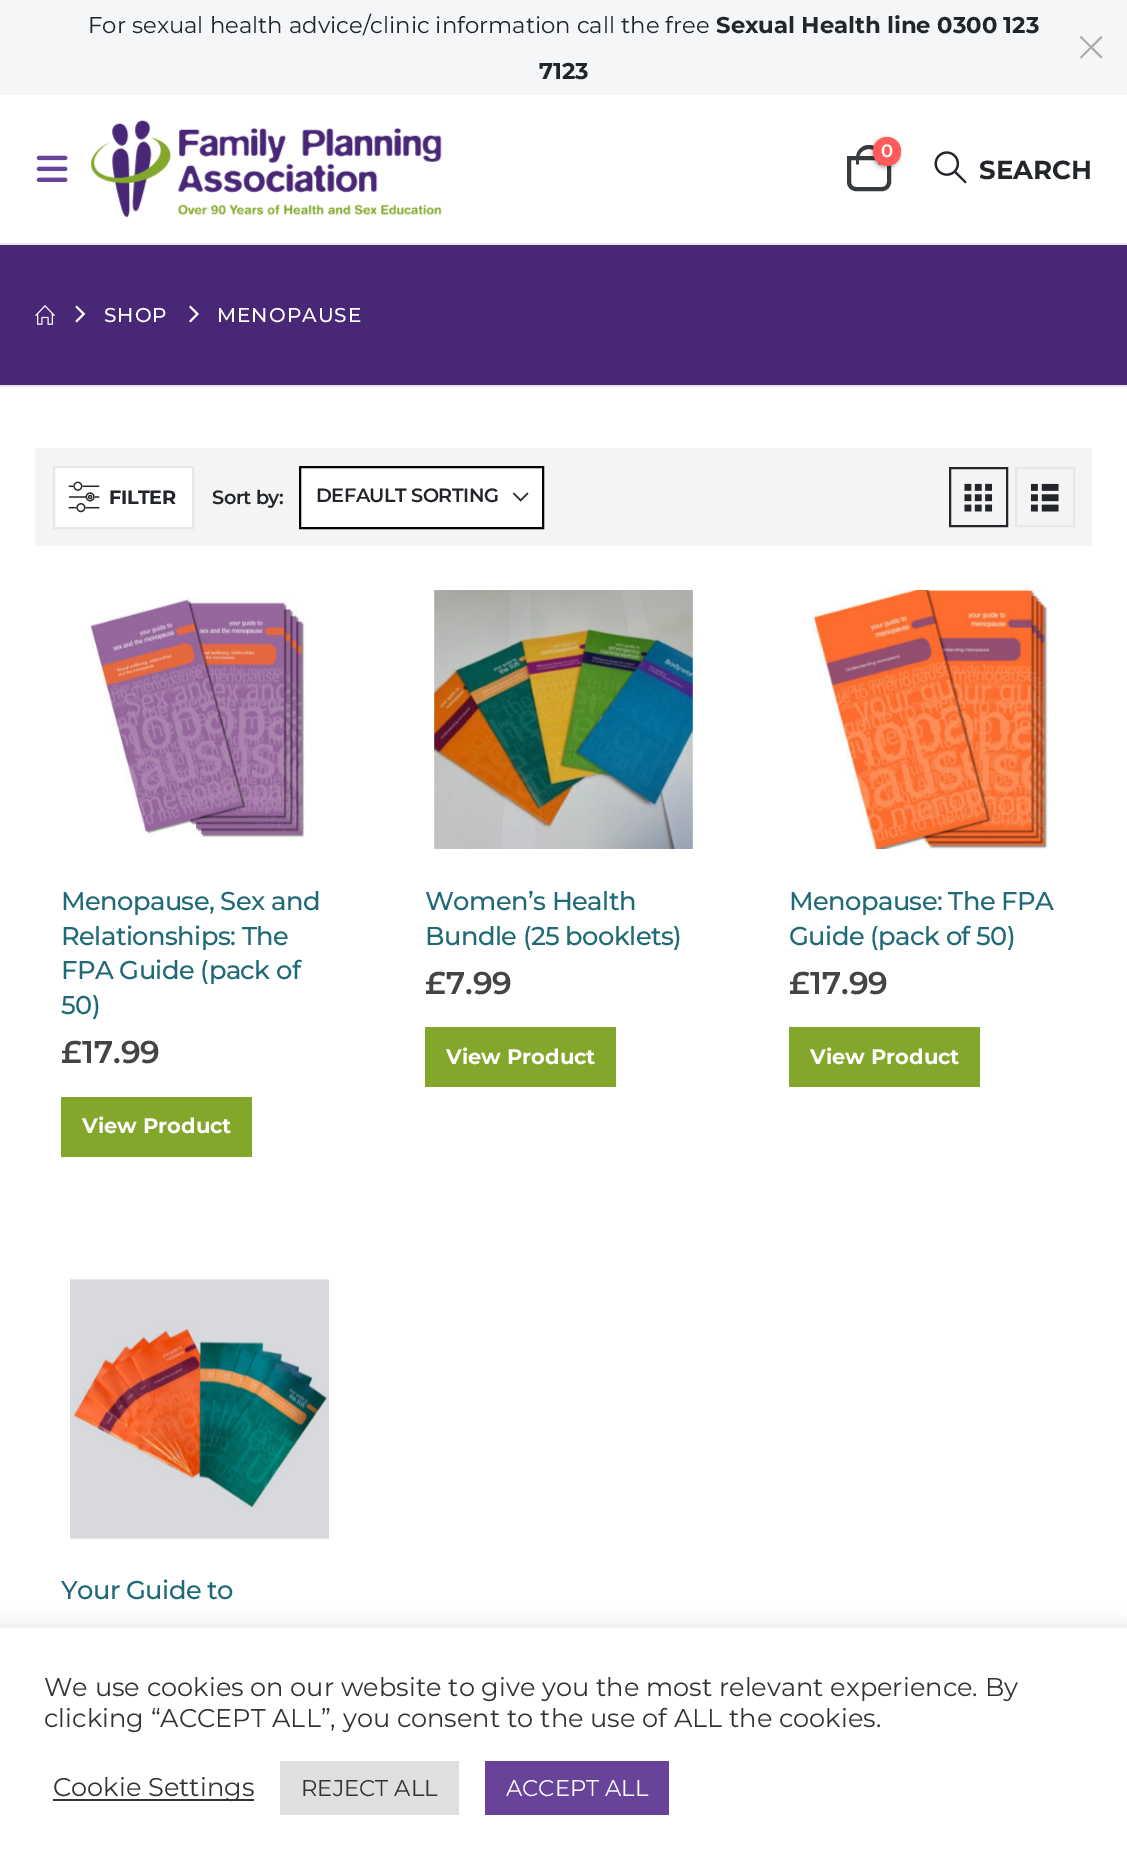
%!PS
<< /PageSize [1127 1866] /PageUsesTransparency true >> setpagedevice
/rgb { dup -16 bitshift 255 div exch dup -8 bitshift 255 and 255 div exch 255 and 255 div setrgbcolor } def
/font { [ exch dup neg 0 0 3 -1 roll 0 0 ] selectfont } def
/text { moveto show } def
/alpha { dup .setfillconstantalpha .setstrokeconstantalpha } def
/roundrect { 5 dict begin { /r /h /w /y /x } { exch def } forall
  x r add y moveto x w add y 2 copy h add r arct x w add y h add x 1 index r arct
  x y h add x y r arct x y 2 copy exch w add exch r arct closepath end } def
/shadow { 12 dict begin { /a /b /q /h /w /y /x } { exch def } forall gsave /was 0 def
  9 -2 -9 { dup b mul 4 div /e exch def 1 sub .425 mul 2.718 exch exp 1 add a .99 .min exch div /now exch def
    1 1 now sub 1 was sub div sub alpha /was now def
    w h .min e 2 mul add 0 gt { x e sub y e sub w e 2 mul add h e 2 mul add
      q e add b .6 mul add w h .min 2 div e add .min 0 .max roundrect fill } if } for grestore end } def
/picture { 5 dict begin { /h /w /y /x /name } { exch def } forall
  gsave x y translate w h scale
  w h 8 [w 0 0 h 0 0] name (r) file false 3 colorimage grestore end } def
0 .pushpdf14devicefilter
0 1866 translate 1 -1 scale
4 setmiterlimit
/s1 { /Montserrat-Regular 22.75 font 16#222529 rgb } def
/s2 { /Montserrat-Bold 22.75 font 16#222529 rgb } def
/s3 { /Montserrat-SemiBold 18 font 16#FFFFFF rgb } def
/s4 { /Montserrat-Bold 26 font 16#222529 rgb } def
/s5 { /Montserrat-SemiBold 31.5 font 16#444444 rgb } def
/s6 { /Montserrat-Bold 21 font 16#FFFFFF rgb } def
/s7 { /Montserrat-Regular 25.65 font 16#333333 rgb } def
/s8 { /Montserrat-Regular 22.75 font 16#333333 rgb } def
/s9 { /Montserrat-Regular 22.75 font 16#FFFFFF rgb } def
16#FFFFFF rgb
0 0 1127 1866 rectfill
16#F5F6F8 rgb
0 0 1127 95 rectfill
s1
(For sexual health advice/clinic information call the free) 88 33 text
s2
(Sexual Health line 0300 123) 716 33 text
(7123) 539 79 text
16#ABABAC rgb
1081 36 moveto 1102.5 57 lineto 1101 58.5 lineto 1080 37.5 lineto closepath fill
1101 36 moveto 1102.5 37.5 lineto 1081 58.5 lineto 1080 57 lineto closepath fill
(pic1.raw) 36 155 32 27 picture
(pic2.raw) 91 120 351 97 picture
16#383B3E rgb
4 setlinewidth
849 158 moveto 889 158 lineto 889 182 lineto 889 186 886 189 882 189 curveto 856 189 lineto 852 189 849 186 849 182 curveto closepath stroke
869 145 moveto 876 145 882 151 882 158.5 curveto 882 164.5 lineto 856 164.5 lineto 856 158.5 lineto 856 151 861.5 145 869 145 curveto closepath 869 149 moveto 874 149 878.5 153 878.5 158.5 curveto 878.5 164.5 lineto 859 164.5 lineto 859 158.5 lineto 859 153 863.5 149 869 149 curveto closepath eofill
16#000000 rgb
872 138 28 30 14 2 0.3 shadow
16#FF5B5B rgb
873 137 28 29 14 roundrect fill
s3
(0) 881 157 text
(pic3.raw) 934 151 33 33 picture
s4
(SEARCH) 979 179 text
16#482776 rgb
0 245 1127 140 rectfill
16#E7E7E7 rgb
0 243 1127 2 rectfill
0 385 1127 2 rectfill
(pic4.raw) 35 305 20 20 picture
(pic5.raw) 75 305 11 18 picture
/Montserrat-Medium 20 font
16#FFFFFF rgb
104 322 moveto 1 0 (SHOP) ashow
(pic6.raw) 189 305 10 18 picture
217 322 moveto 1 0 (MENOPAUSE) ashow
16#F4F4F4 rgb
35 448 1057 98 rectfill
16#FFFFFF rgb
54 467 moveto 193 467 lineto 193 528 lineto 54 528 lineto closepath gsave fill grestore
16#E7E7E7 rgb
2 setlinewidth
stroke
(pic7.raw) 68 481 32 32 picture
/Montserrat-Bold 19.25 font
16#222529 rgb
109 504 moveto -0.5 0 (FILTER) ashow
/Montserrat-SemiBold 19.25 font
212 504 moveto -0.5 0 (Sort by:) ashow
16#FFFFFF rgb
301 468 241 59 rectfill
(pic8.raw) 512 492 17 10 picture
16#000000 rgb
300 467 243 61 rectstroke
16#222529 rgb
316 502 moveto -0.5 0 (DEFAULT SORTING) ashow
950 468 57 58 rectstroke
(pic9.raw) 964 483 29 29 picture
16#E7E7E7 rgb
1016 468 58 58 rectstroke
(pic10.raw) 1030 483 29 29 picture
(pic11.raw) 90 597 215 241 picture
/Montserrat-Medium 25.75 font
16#206976 rgb
61 910 moveto -0.6 0 (Menopause, Sex and) ashow
61 945 moveto -0.6 0 (Relationships: The) ashow
61 979 moveto -0.6 0 (FPA Guide \(pack of) ashow
61 1014 moveto -0.6 0 (50\)) ashow
s5
(£17.99) 61 1063 text
16#82A72A rgb
61 1097 191 60 rectfill
s6
(View Product) 82 1133 text
(pic12.raw) 434 590 259 259 picture
/Montserrat-Medium 25.75 font
16#206976 rgb
425 910 moveto -0.6 0 (Women’s Health) ashow
425 945 moveto -0.6 0 (Bundle \(25 booklets\)) ashow
s5
(£7.99) 425 994 text
16#82A72A rgb
425 1027 191 60 rectfill
s6
(View Product) 446 1064 text
(pic13.raw) 812 590 236 259 picture
/Montserrat-Medium 25.75 font
16#206976 rgb
789 910 moveto -0.6 0 (Menopause: The FPA) ashow
789 945 moveto -0.6 0 (Guide \(pack of 50\)) ashow
s5
(£17.99) 789 994 text
16#82A72A rgb
789 1027 191 60 rectfill
s6
(View Product) 810 1064 text
(pic14.raw) 70 1279 259 260 picture
/Montserrat-Medium 25.75 font
16#206976 rgb
61 1599 moveto -0.6 0 (Your Guide to) ashow
16#ACABAB rgb
0 1626 1127 240 0 9 0.3 shadow
16#FFFFFF rgb
0 1628 1127 238 rectfill
s7
(We use cookies on our website to give you the most relevant experience. By) 44 1696 text
(clicking “ACCEPT ALL”, you consent to the use of ALL the cookies.) 44 1727 text
53 1799 201 2 rectfill
(Cookie Settings) 53 1796 text
16#DEDFE0 rgb
280 1761 179 54 rectfill
s8
(REJECT ALL) 301 1796 text
16#674399 rgb
485 1761 184 54 rectfill
s9
(ACCEPT ALL) 506 1796 text
.poppdf14devicefilter showpage
